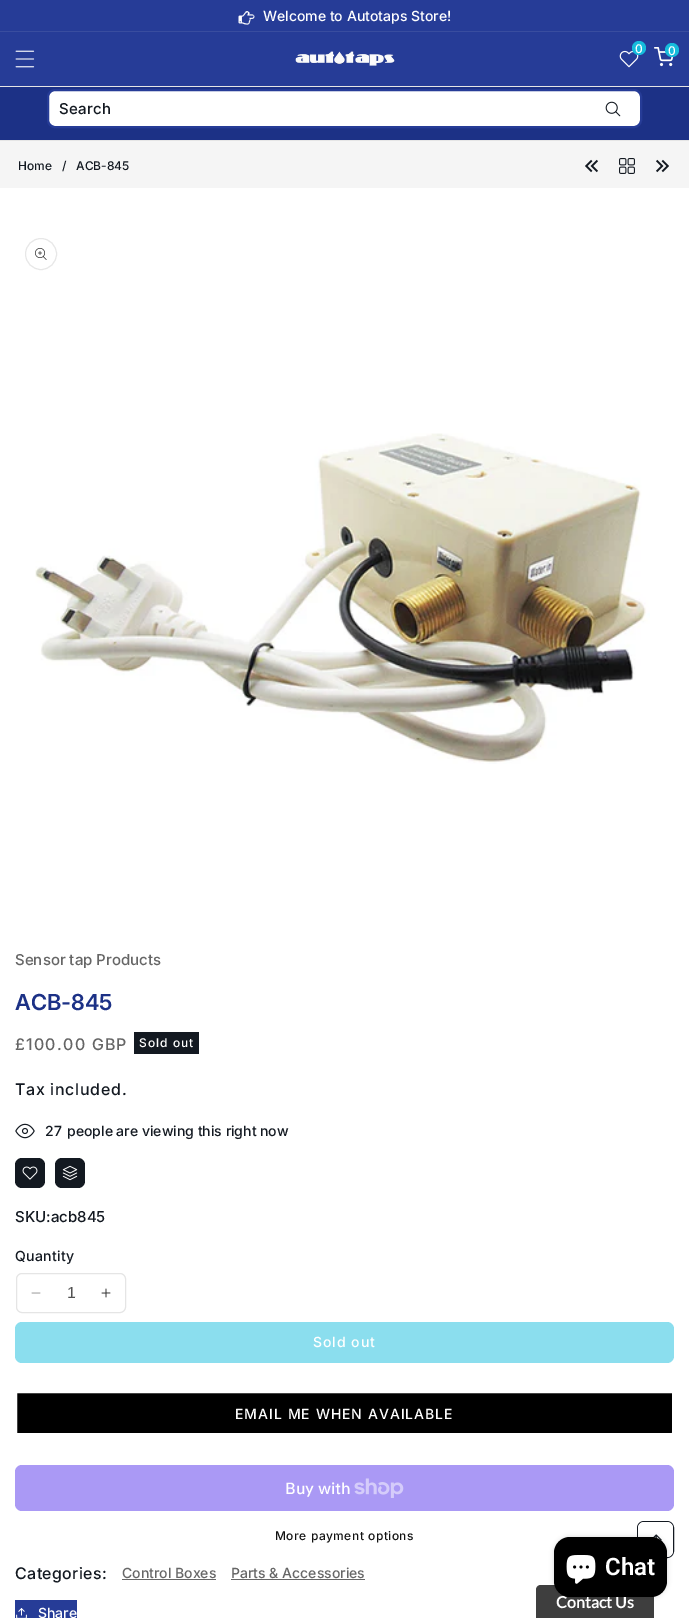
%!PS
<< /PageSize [689 1618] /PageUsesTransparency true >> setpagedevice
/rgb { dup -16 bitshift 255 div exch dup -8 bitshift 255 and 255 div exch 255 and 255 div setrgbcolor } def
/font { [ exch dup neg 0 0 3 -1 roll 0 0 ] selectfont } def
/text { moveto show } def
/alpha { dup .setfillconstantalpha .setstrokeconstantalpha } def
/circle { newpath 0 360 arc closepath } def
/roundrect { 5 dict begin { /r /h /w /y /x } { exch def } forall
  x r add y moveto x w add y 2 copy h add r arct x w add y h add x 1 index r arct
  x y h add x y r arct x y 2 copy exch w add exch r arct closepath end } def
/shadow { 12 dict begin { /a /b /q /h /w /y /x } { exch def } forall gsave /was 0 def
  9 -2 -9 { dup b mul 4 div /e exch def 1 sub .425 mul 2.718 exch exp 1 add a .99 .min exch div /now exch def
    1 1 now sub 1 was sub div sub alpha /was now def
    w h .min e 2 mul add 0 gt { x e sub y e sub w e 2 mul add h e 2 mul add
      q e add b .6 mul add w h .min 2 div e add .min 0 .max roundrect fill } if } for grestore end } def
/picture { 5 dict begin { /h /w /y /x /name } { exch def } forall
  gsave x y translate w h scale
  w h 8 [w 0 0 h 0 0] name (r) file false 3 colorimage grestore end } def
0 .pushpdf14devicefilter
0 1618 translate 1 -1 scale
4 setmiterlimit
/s1 { /Inter-Medium 14 font 16#FFFFFF rgb } def
/s2 { /Inter-Medium 12 font 16#FFFFFF rgb } def
/s3 { /Inter-Medium 12 font 16#131921 rgb } def
/s4 { /Inter-Medium 15 font 16#666666 rgb } def
/s5 { /Inter-SemiBold 22 font 16#1C3186 rgb } def
/s6 { /Inter-Medium 14 font 16#131921 rgb } def
/s7 { /Inter-Medium 15 font 16#131921 rgb } def
/s8 { /LiberationSans-Regular 16 font 16#525252 rgb } def
/s9 { /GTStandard-Medium 16 font 16#FFFFFF rgb } def
/s10 { /Inter-Medium 14 font 16#666666 rgb } def
/s11 { /Lato-Bold 16 font 16#FFFFFF rgb } def
/s12 { /Roboto-SemiBold 24 font 16#FFFFFF rgb } def
16#FFFFFF rgb
0 0 689 1618 rectfill
16#263C97 rgb
0 0 689 31 rectfill
16#394D9F rgb
0 31 689 1 rectfill
(pic1.raw) 238 11 17 14 picture
s1
(Welcome to Autotaps Store!) 263 21 text
16#263C97 rgb
0 32 689 54 rectfill
(pic2.raw) 15 50 20 18 picture
(pic3.raw) 295 51 100 16 picture
(pic4.raw) 619 50 20 18 picture
16#16BCDC rgb
639 48 7 circle fill
s2
(0) 635 53 text
(pic5.raw) 654 47 20 20 picture
16#16BCDC rgb
672 50 7 circle fill
s2
(0) 668 55 text
16#1C3186 rgb
0 87 689 53 rectfill
16#E5E5E5 rgb
0 86 689 1 rectfill
0 140 689 1 rectfill
16#FFFFFF rgb
49 91 591 35 6 roundrect fill
585 91 moveto 634 91 lineto 637.5 91 640 93.5 640 97 curveto 640 120 lineto 640 123.5 637.5 126 634 126 curveto 585 126 lineto closepath fill
(pic6.raw) 605 101 16 16 picture
16#263C97 rgb
2 setlinewidth
48 90 593 37 7 roundrect stroke
/Inter-Medium 15 font
16#131921 rgb
59 114 moveto 0.4 0 (Search) ashow
16#F5F5F5 rgb
0 141 689 47 rectfill
s3
(Home) 18 170 text
(/) 62 170 text
(ACB-845) 76 170 text
(pic7.raw) 585 159 13 14 picture
(pic8.raw) 619 158 16 16 picture
(pic9.raw) 656 159 13 14 picture
16#E7E7E7 rgb
1 setlinewidth
41 254 15.5 circle stroke
(pic10.raw) 35 248 12 12 picture
(pic11.raw) 35 433 615 331 picture
s4
(Sensor tap Products) 15 965 text
s5
(ACB-845) 15 1010 text
/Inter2-Medium 16 font
16#666666 rgb
15 1050 moveto 1.25 0 (£100.00 GBP) ashow
16#131921 rgb
134 1032 65 22 rectfill
/Inter-Medium 12 font
16#FFFFFF rgb
139 1047 moveto 1 0 (Sold out) ashow
/Inter2-Medium 16 font
16#131921 rgb
15 1095 moveto 0.75 0 (Tax included.) ashow
(pic12.raw) 15 1123 20 16 picture
s6
(27) 45 1136 text
(people are viewing this right now) 67 1136 text
15 1158 30 30 7 roundrect fill
(pic13.raw) 22 1166 16 14 picture
55 1158 30 30 7 roundrect fill
(pic14.raw) 62 1165 16 16 picture
s7
(SKU:acb845) 15 1222 text
/Inter-Medium 14 font
15 1261 moveto 0.4 0 (Quantity) ashow
(pic15.raw) 31 1292 10 2 picture
(pic16.raw) 101 1288 10 10 picture
16#E5E5E5 rgb
16.5 1273.5 109 39 5.5 roundrect stroke
s8
(1) 67 1298 text
16#8BDEEE rgb
15 1322 659 41 7 roundrect fill
/Inter-Medium 14 font
16#FFFFFF rgb
313 1347 moveto 1 0 (Sold out) ashow
16#000000 rgb
16 1392 657 42 1 roundrect gsave fill grestore
16#FFFFFF rgb
2 setlinewidth
stroke
235 1419 moveto 1 0 (EMAIL ME WHEN AVAILABLE) ashow
16#AA99F5 rgb
15 1465 659 46 7 roundrect fill
s9
(Buy with) 285 1494 text
(pic17.raw) 354 1478 50 20 picture
/Inter-Medium 12 font
16#121212 rgb
275 1540 moveto 0.5 0 (More payment options) ashow
/Inter2-Medium 16 font
16#131921 rgb
15 1579 moveto 0.4 0 (Categories:) ashow
s10
(Control Boxes) 122 1578 text
122 1579 94 1 rectfill
(Parts & Accessories) 231 1578 text
231 1579 134 1 rectfill
16#263C97 rgb
15 1600 62 18 rectfill
(pic18.raw) 16 1608 11 10 picture
s1
(Share) 38 1618 text
16#131921 rgb
1 setlinewidth
637.5 1521.5 36 36 6.5 roundrect stroke
16#FFFFFF rgb
638 1522 35 35 6 roundrect fill
(pic19.raw) 652 1534 10 7 picture
16#3E3E3E rgb
541 1585 moveto 649 1585 lineto 652 1585 654 1587 654 1590 curveto 654 1618 lineto 536 1618 lineto 536 1590 lineto 536 1587 538 1585 541 1585 curveto closepath fill
16#000000 rgb
554 1537 113 60 16 2.5 0.15 shadow
s11
(Contact Us) 556 1608 text
16#000000 rgb
554 1537 113 60 16 roundrect fill
(pic20.raw) 566 1555 30 29 picture
s12
(Chat) 605 1575 text
.poppdf14devicefilter showpage
